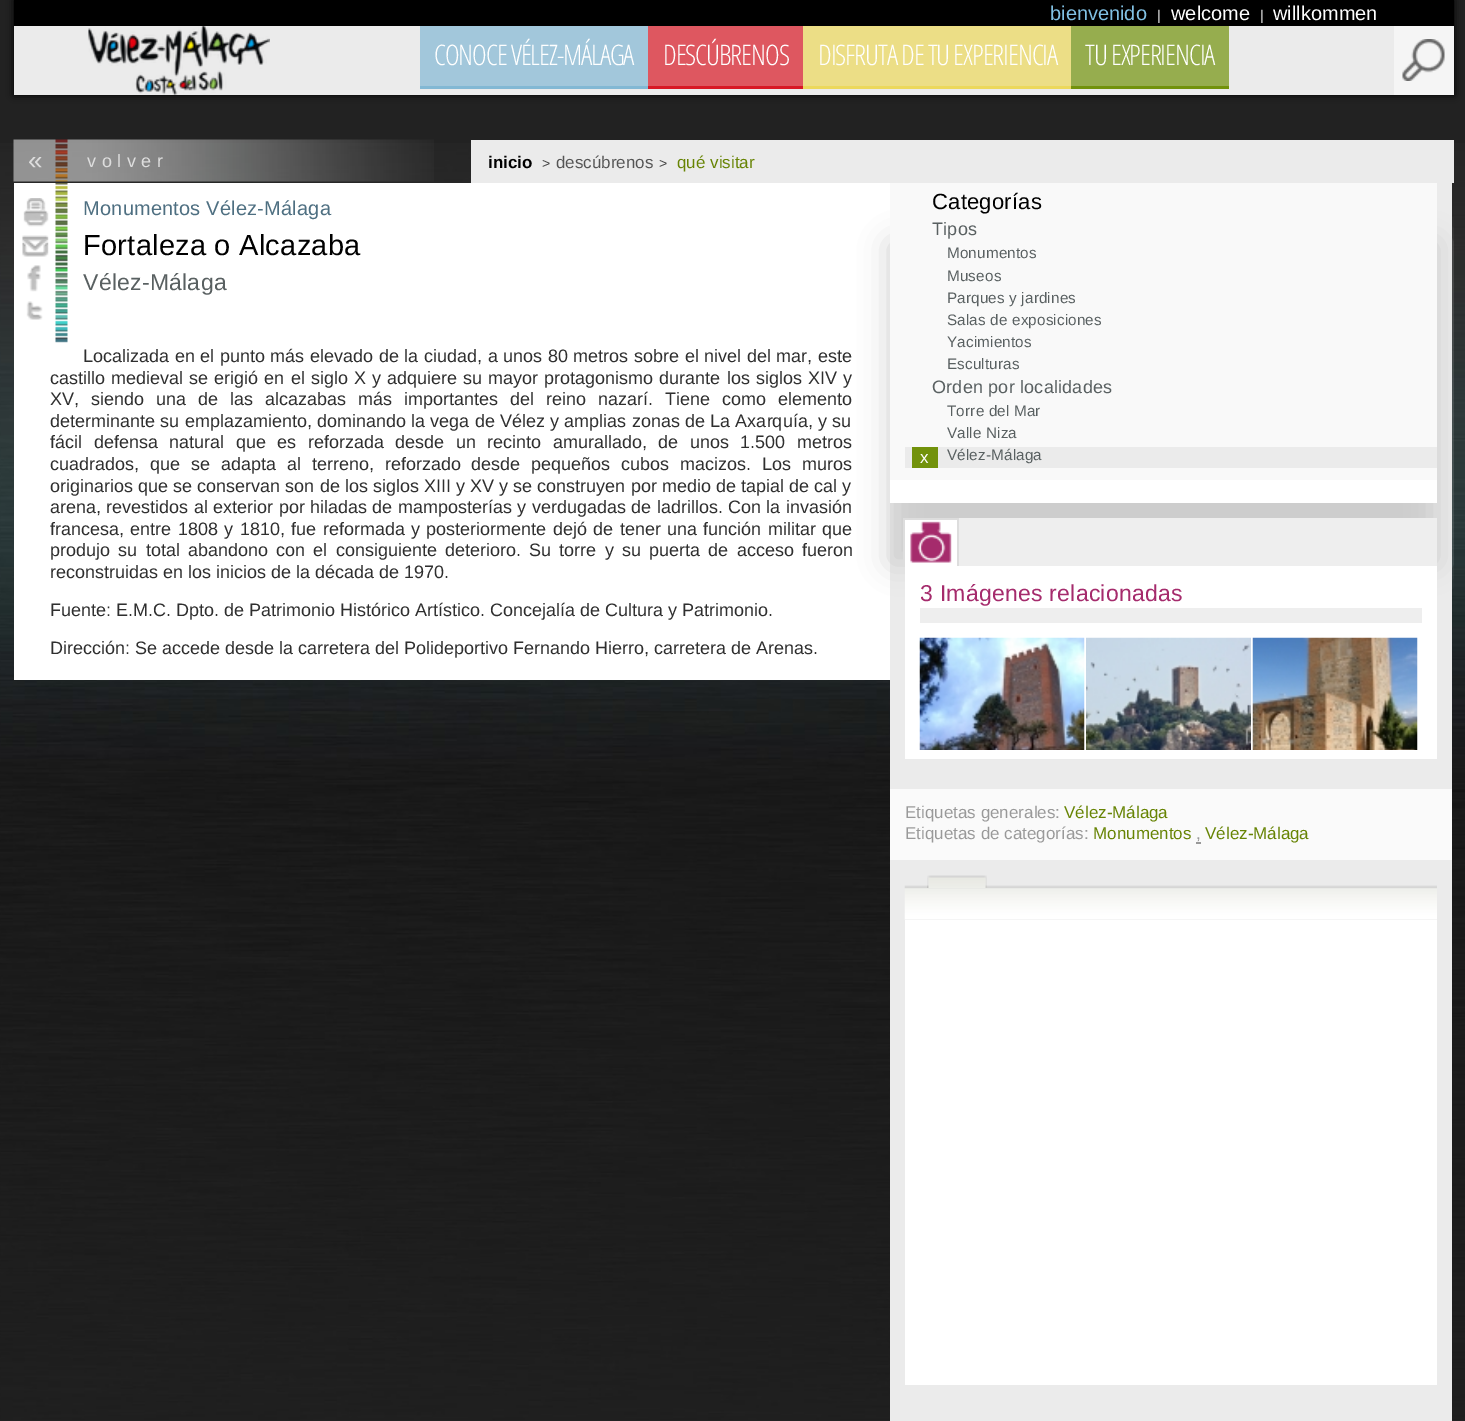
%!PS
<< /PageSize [1465 1421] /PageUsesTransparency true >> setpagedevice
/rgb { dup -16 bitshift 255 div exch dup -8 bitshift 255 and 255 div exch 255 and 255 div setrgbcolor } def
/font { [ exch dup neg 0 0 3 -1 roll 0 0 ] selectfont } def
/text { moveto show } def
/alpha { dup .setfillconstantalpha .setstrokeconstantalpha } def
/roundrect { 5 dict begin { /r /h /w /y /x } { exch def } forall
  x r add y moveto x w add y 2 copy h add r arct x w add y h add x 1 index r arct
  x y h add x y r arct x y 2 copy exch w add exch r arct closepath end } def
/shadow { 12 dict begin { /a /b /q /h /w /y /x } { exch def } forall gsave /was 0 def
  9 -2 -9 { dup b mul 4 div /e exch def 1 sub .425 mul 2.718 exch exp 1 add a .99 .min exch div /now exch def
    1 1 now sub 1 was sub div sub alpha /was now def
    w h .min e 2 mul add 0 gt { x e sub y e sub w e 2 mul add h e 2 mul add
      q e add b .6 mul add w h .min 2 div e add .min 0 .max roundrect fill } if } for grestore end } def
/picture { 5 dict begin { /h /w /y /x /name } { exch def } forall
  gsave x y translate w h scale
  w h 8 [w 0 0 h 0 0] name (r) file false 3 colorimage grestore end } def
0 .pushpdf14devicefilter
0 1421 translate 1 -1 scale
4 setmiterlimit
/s1 { /LiberationSans-Regular 20 font 16#81C1E4 rgb } def
/s2 { /LiberationSans-Regular 14 font 16#DDDDDD rgb } def
/s3 { /LiberationSans-Regular 20 font 16#FFFFFF rgb } def
/s4 { /LiberationSans-Regular 26 font 16#DDDDDD rgb } def
/s5 { /LiberationSans-Regular 18 font 16#2F2F2F rgb } def
/s6 { /LiberationSans-Regular 17 font 16#FFFFFF rgb } def
/s7 { /LiberationSans-Regular 17 font 16#999999 rgb } def
/s8 { /LiberationSans-Regular 17 font 16#678404 rgb } def
/s9 { /LiberationSans-Bold 17 font 16#000000 rgb } def
/s10 { /LiberationSans-Regular 14 font 16#444444 rgb } def
/s11 { /LiberationSans-Regular 17 font 16#555555 rgb } def
16#222222 rgb
0 0 1465 1421 rectfill
(pic1.raw) 0 143 1465 1277 picture
16#000000 rgb
14 0 1440 95 0 4 1 shadow
14 0 1440 26 rectfill
s1
(bienvenido) 1050 20 text
s2
(|) 1157 20 text
s3
(welcome) 1171 20 text
s2
(|) 1260 20 text
s3
(willkommen) 1273 20 text
16#EBEBEB rgb
14 26 1380 69 rectfill
(pic2.raw) 88 26 182 69 picture
16#A2C7DB rgb
420 26 228 60 rectfill
16#82B8D4 rgb
420 86 228 3 rectfill
/OpenSansCondensed-Light 28.25 font
16#FFFFFF rgb
434 65 moveto -1.1 0 (CONOCE VÉLEZ-MÁLAGA) ashow
16#DE5760 rgb
648 26 155 60 rectfill
16#D81825 rgb
648 86 155 3 rectfill
16#FFFFFF rgb
663 65 moveto -1.1 0 (DESCÚBRENOS) ashow
16#ECDE86 rgb
803 26 268 60 rectfill
16#ECD85B rgb
803 86 268 3 rectfill
16#FFFFFF rgb
818 65 moveto -1.1 0 (DISFRUTA DE TU EXPERIENCIA) ashow
16#96AD4E rgb
1071 26 158 60 rectfill
16#72920B rgb
1071 86 158 3 rectfill
16#FFFFFF rgb
1085 65 moveto -1.1 0 (TU EXPERIENCIA) ashow
16#F5F5F5 rgb
1394 26 60 69 rectfill
(pic3.raw) 1402 39 43 42 picture
(pic4.raw) 13 139 421 43 picture
s4
(«) 28 169 text
/LiberationSans-Regular 18 font
87 167 moveto 5.5 0 (volver) ashow
16#FFFFFF rgb
14 183 876 497 rectfill
(pic5.raw) 55 183 13 160 picture
(pic6.raw) 23 198 26 29 picture
(pic7.raw) 22 235 27 22 picture
(pic8.raw) 27 265 14 27 picture
(pic9.raw) 26 301 17 19 picture
/LiberationSans-Regular 20 font
16#4E6F81 rgb
83 215 moveto 0.2 0 (Monumentos Vélez-Málaga) ashow
/LiberationSans-Regular 29 font
16#000000 rgb
83 255 moveto 0.25 0 (Fortaleza o Alcazaba) ashow
/LiberationSans-Regular 23 font
16#596061 rgb
83 290 moveto 0.25 0 (Vélez-Málaga) ashow
/LiberationSans-Regular 18 font
16#2F2F2F rgb
83 362 moveto 0.6 0 32 (Localizada en el punto más elevado de la ciudad, a unos 80 metros sobre el nivel del mar, este) widthshow
50 384 moveto 1.1 0 32 (castillo medieval se erigió en el siglo X y adquiere su mayor protagonismo durante los siglos XIV y) widthshow
50 405 moveto 7 0 32 (XV, siendo una de las alcazabas más importantes del reino nazarí.) widthshow
665 405 moveto 7 0 32 (Tiene como elemento) widthshow
50 427 moveto 0.25 0 32 (determinante su emplazamiento, dominando la vega de Vélez y amplias zonas de La Axarquía, y su) widthshow
50 448 moveto 6.5 0 32 (fácil defensa natural que es reforzada desde un recinto amurallado, de unos 1.500 metros) widthshow
50 470 moveto 5.9 0 32 (cuadrados, que se adapta al terreno, reforzado desde pequeños cubos macizos. Los muros) widthshow
50 492 moveto 0.1 0 32 (originarios que se conservan son de los siglos XIII y XV y se construyen por medio de tapial de cal y) widthshow
50 513 moveto 0.4 0 32 (arena, revestidos al exterior por hiladas de mamposterías y verdugadas de ladrillos. Con la invasión) widthshow
50 535 moveto 1.4 0 32 (francesa, entre 1808 y 1810, fue reformada y posteriormente dejó de tener una función militar que) widthshow
50 556 moveto 3.25 0 32 (produjo su total abandono con el consiguiente deterioro. Su torre y su puerta de acceso fueron) widthshow
(reconstruidas en los inicios de la década de 1970.) 50 578 text
(Fuente: E.M.C. Dpto. de Patrimonio Histórico Artístico. Concejalía de Cultura y Patrimonio.) 50 616 text
(Dirección: Se accede desde la carretera del Polideportivo Fernando Hierro, carretera de Arenas.) 50 654 text
16#EBEBEB rgb
890 183 562 1238 rectfill
gsave
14 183 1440 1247 rectclip
16#CCCCCC rgb
890 243 547 320 0 15 1 shadow
grestore
16#FFFFFF rgb
890 480 547 23 rectfill
16#F9F9F9 rgb
890 183 547 297 rectfill
/LiberationSans-Regular 22 font
16#000000 rgb
932 209 moveto 0.25 0 (Categorías) ashow
/LiberationSans-Regular 18 font
16#596061 rgb
932 235 moveto 0.2 0 (Tipos) ashow
/LiberationSans-Regular 15.25 font
947 258 moveto 0.15 0 (Monumentos) ashow
947 281 moveto 0.15 0 (Museos) ashow
947 303 moveto 0.15 0 (Parques y jardines) ashow
947 325 moveto 0.15 0 (Salas de exposiciones) ashow
947 347 moveto 0.15 0 (Yacimientos) ashow
947 369 moveto 0.15 0 (Esculturas) ashow
/LiberationSans-Regular 18 font
932 393 moveto 0.2 0 (Orden por localidades) ashow
/LiberationSans-Regular 15.25 font
947 416 moveto 0.15 0 (Torre del Mar) ashow
947 438 moveto 0.15 0 (Valle Niza) ashow
16#EBEBEB rgb
905 447 532 21 rectfill
16#72920B rgb
912 447 26 21 rectfill
s6
(x) 920 463 text
/LiberationSans-Regular 15.25 font
16#596061 rgb
947 460 moveto 0.15 0 (Vélez-Málaga) ashow
16#EEEEEE rgb
959 518 478 48 rectfill
16#FFFFFF rgb
905 520 52 46 rectfill
16#DDDDDD rgb
903 518 56 2 rectfill
957 518 2 48 rectfill
903 518 2 48 rectfill
(pic10.raw) 910 521 42 42 picture
16#FFFFFF rgb
905 566 532 193 rectfill
16#EEEEEE rgb
920 608 502 15 rectfill
/LiberationSans-Regular 23 font
16#A52B6C rgb
920 601 moveto 0.25 0 (3 Imágenes relacionadas) ashow
(pic11.raw) 919 637 166 113 picture
(pic12.raw) 1086 637 165 113 picture
(pic13.raw) 1252 637 166 113 picture
16#FAFAFA rgb
890 789 562 71 rectfill
s7
(Etiquetas generales:) 905 818 text
s8
(Vélez-Málaga) 1064 818 text
s7
(Etiquetas de categorías:) 905 839 text
s8
(Monumentos) 1093 839 text
s7
(,) 1196 839 text
1196 842 5 2 rectfill
s8
(Vélez-Málaga) 1205 839 text
(pic14.raw) 904 885 533 35 picture
(pic15.raw) 927 875 60 13 picture
16#FFFFFF rgb
905 920 532 465 rectfill
16#EBEBEB rgb
471 140 983 43 rectfill
s9
(inicio) 488 168 text
s10
(>) 542 168 text
s11
(descúbrenos) 556 168 text
s10
(>) 659 168 text
s8
(qué visitar) 677 168 text
.poppdf14devicefilter showpage
